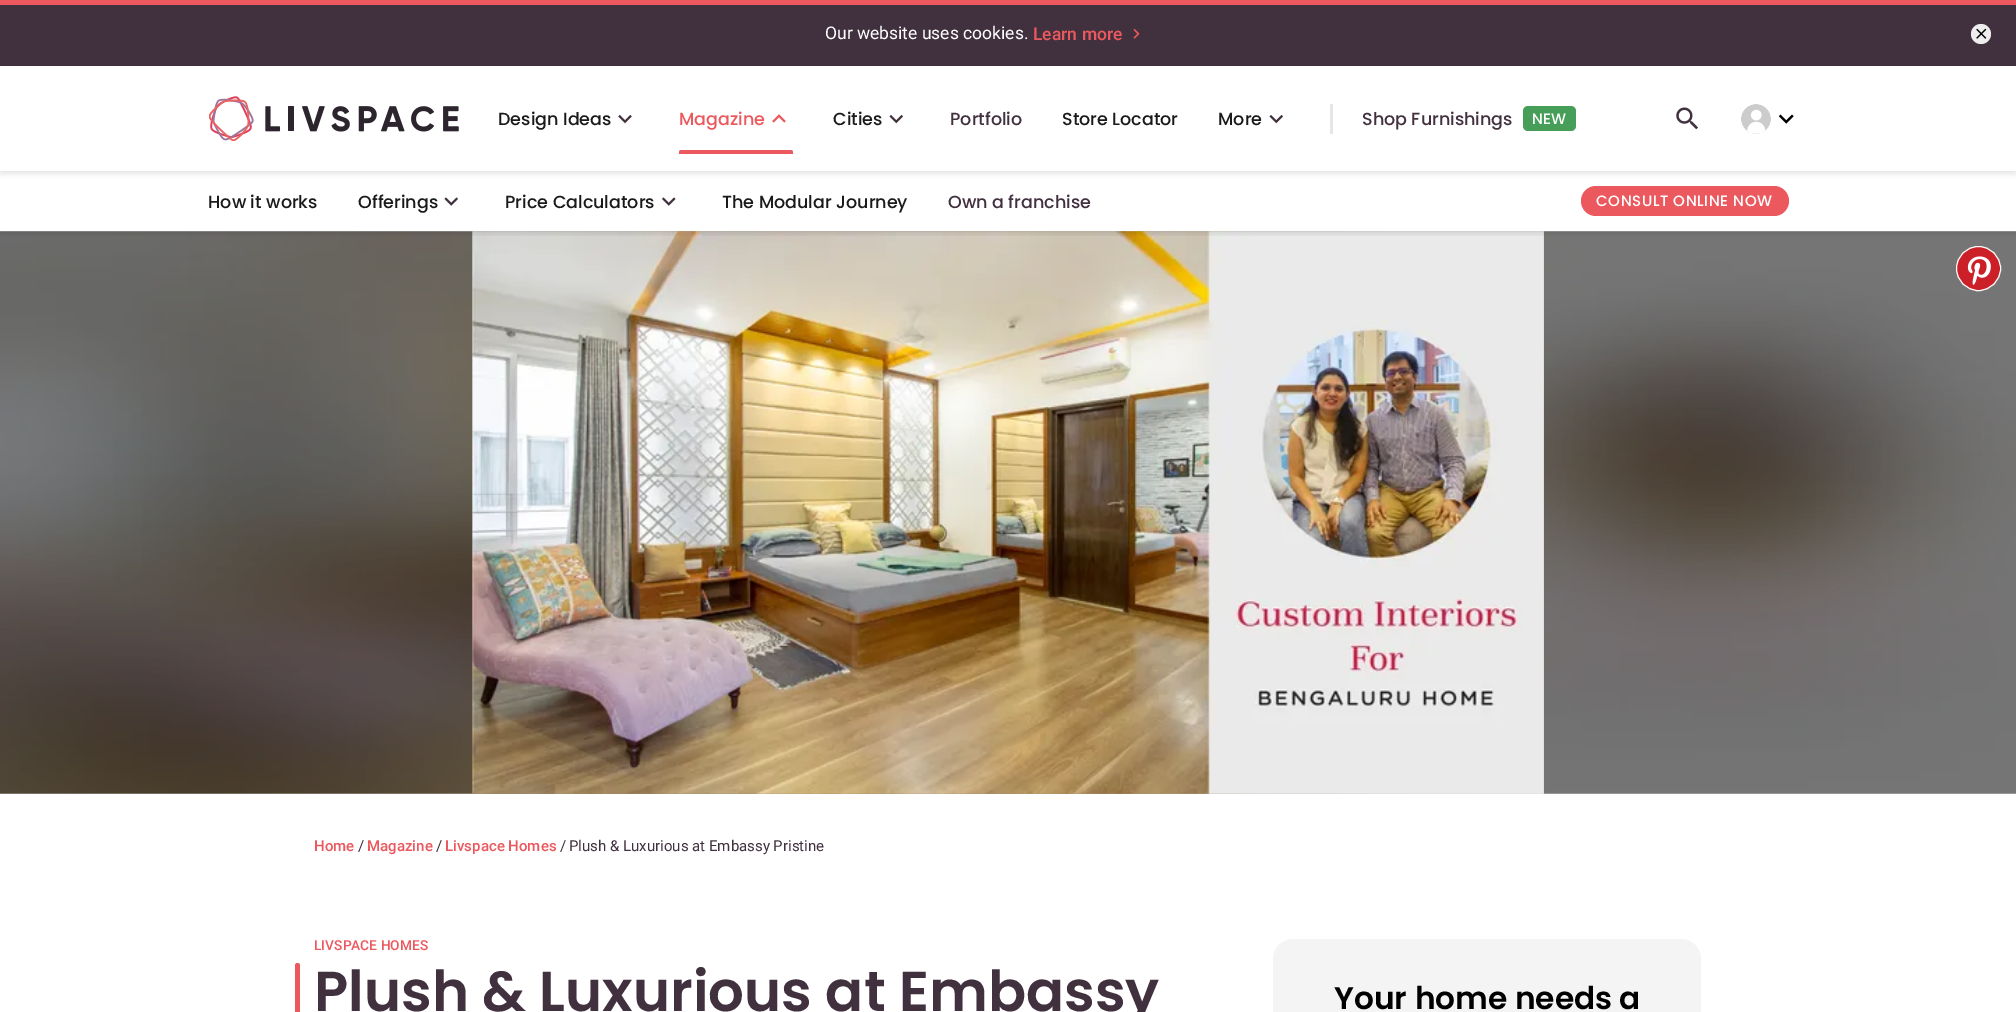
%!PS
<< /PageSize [2016 1012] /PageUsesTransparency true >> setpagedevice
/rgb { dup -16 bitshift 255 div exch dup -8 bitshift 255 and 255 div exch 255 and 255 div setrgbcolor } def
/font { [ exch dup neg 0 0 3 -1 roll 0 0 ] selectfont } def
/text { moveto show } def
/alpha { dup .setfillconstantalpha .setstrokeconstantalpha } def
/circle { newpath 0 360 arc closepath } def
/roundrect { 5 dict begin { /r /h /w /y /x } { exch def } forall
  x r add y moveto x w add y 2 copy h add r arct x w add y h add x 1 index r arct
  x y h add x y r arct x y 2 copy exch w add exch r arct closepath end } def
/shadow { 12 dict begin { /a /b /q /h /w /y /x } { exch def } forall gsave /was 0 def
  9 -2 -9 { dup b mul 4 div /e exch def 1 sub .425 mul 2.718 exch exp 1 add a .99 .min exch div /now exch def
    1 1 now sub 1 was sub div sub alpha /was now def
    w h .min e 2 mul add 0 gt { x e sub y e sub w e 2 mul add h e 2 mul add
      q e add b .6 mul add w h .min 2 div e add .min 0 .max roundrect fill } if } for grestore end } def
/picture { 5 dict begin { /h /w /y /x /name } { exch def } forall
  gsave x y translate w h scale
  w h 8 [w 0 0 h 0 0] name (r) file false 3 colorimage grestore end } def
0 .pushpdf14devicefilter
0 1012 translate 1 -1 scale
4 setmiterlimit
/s1 { /Roboto-Regular 17.5 font 16#FFFFFF rgb } def
/s2 { /Roboto-Medium 17.5 font 16#EB595F rgb } def
/s3 { /Poppins-Medium 17.5 font 16#1A1A1A rgb } def
/s4 { /Poppins-Medium 17.5 font 16#EB595F rgb } def
/s5 { /Poppins-Medium 17.5 font 16#41303E rgb } def
/s6 { /Poppins-Medium 15 font 16#FFFFFF rgb } def
/s7 { /Roboto-Medium 15 font 16#EB595F rgb } def
/s8 { /Roboto-Regular 15 font 16#41303E rgb } def
/s9 { /Roboto-Medium 13.75 font 16#EB595F rgb } def
/s10 { /Poppins-SemiBold 56.25 font 16#41303E rgb } def
/s11 { /Poppins-SemiBold 31.25 font 16#000000 rgb } def
16#FFFFFF rgb
0 0 2016 1012 rectfill
16#EB595F rgb
0 0 2016 5 rectfill
16#41303E rgb
0 5 2016 61 rectfill
s1
(Our website uses cookies.) 825 39 text
s2
(Learn more) 1033 40 text
(pic1.raw) 1133 28 7 11 picture
16#EEEEEE rgb
1981 34 10 circle fill
(pic2.raw) 1976 28 11 11 picture
16#000000 rgb
0 69 2016 105 0 2.5 0.1 shadow
(pic12.raw) 0 231 2016 563 picture
(pic13.raw) 472 231 1072 563 picture
(pic14.raw) 472 231 1072 563 picture
gsave
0 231 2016 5 rectclip
0 174 2016 60 0 2.5 0.1 shadow
grestore
16#FFFFFF rgb
0 66 2016 105 rectfill
(pic3.raw) 209 96 250 45 picture
s3
(Design Ideas) 498 125 text
(pic4.raw) 618 114 14 10 picture
s4
(Magazine) 679 125 text
(pic5.raw) 772 114 14 9 picture
681.5 150 moveto 790.5 150 lineto 792 150 793 151 793 152.5 curveto 793 154 lineto 679 154 lineto 679 152.5 lineto 679 151 680 150 681.5 150 curveto closepath fill
s3
(Cities) 833 125 text
(pic6.raw) 889 114 14 10 picture
s5
(Portfolio) 950 125 text
s3
(Store Locator) 1062 125 text
(More) 1218 125 text
(pic6.raw) 1269 114 14 10 picture
16#E6E6E6 rgb
1330 104 3 30 rectfill
s5
(Shop Furnishings) 1362 125 text
16#469E59 rgb
1523 106 53 25 5 roundrect fill
s6
(NEW) 1532 124 text
(pic7.raw) 1676 107 22 23 picture
(pic8.raw) 1741 104 30 30 picture
(pic9.raw) 1778 114 16 10 picture
s3
(How it works) 208 208 text
(Offerings) 358 208 text
(pic10.raw) 444 197 14 9 picture
(Price Calculators) 505 208 text
(pic11.raw) 662 197 14 9 picture
(The Modular Journey) 722 208 text
s5
(Own a franchise) 948 208 text
16#EB595F rgb
1581 186 208 30 15 roundrect fill
/Poppins-Medium 15 font
16#FFFFFF rgb
1596 206 moveto 0.6 0 (CONSULT ONLINE NOW) ashow
16#CB2027 rgb
1978.5 268.5 22 circle gsave fill grestore
16#FFFFFF rgb
stroke
(pic15.raw) 1967 256 24 29 picture
s7
(Home) 314 851 text
s8
(/) 358 851 text
s7
(Magazine) 367 851 text
s8
(/) 436 851 text
s7
(Livspace Homes) 445 851 text
s8
(/) 560 851 text
(Plush & Luxurious at Embassy Pristine) 569 851 text
s9
(LIVSPACE HOMES) 314 950 text
295 963 5 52 2.5 roundrect fill
s10
(Plush & Luxurious at Embassy) 314 1011 text
16#F5F4F5 rgb
1273 939 428 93 20 roundrect fill
s11
(Your home needs a) 1334 1009 text
.poppdf14devicefilter showpage
